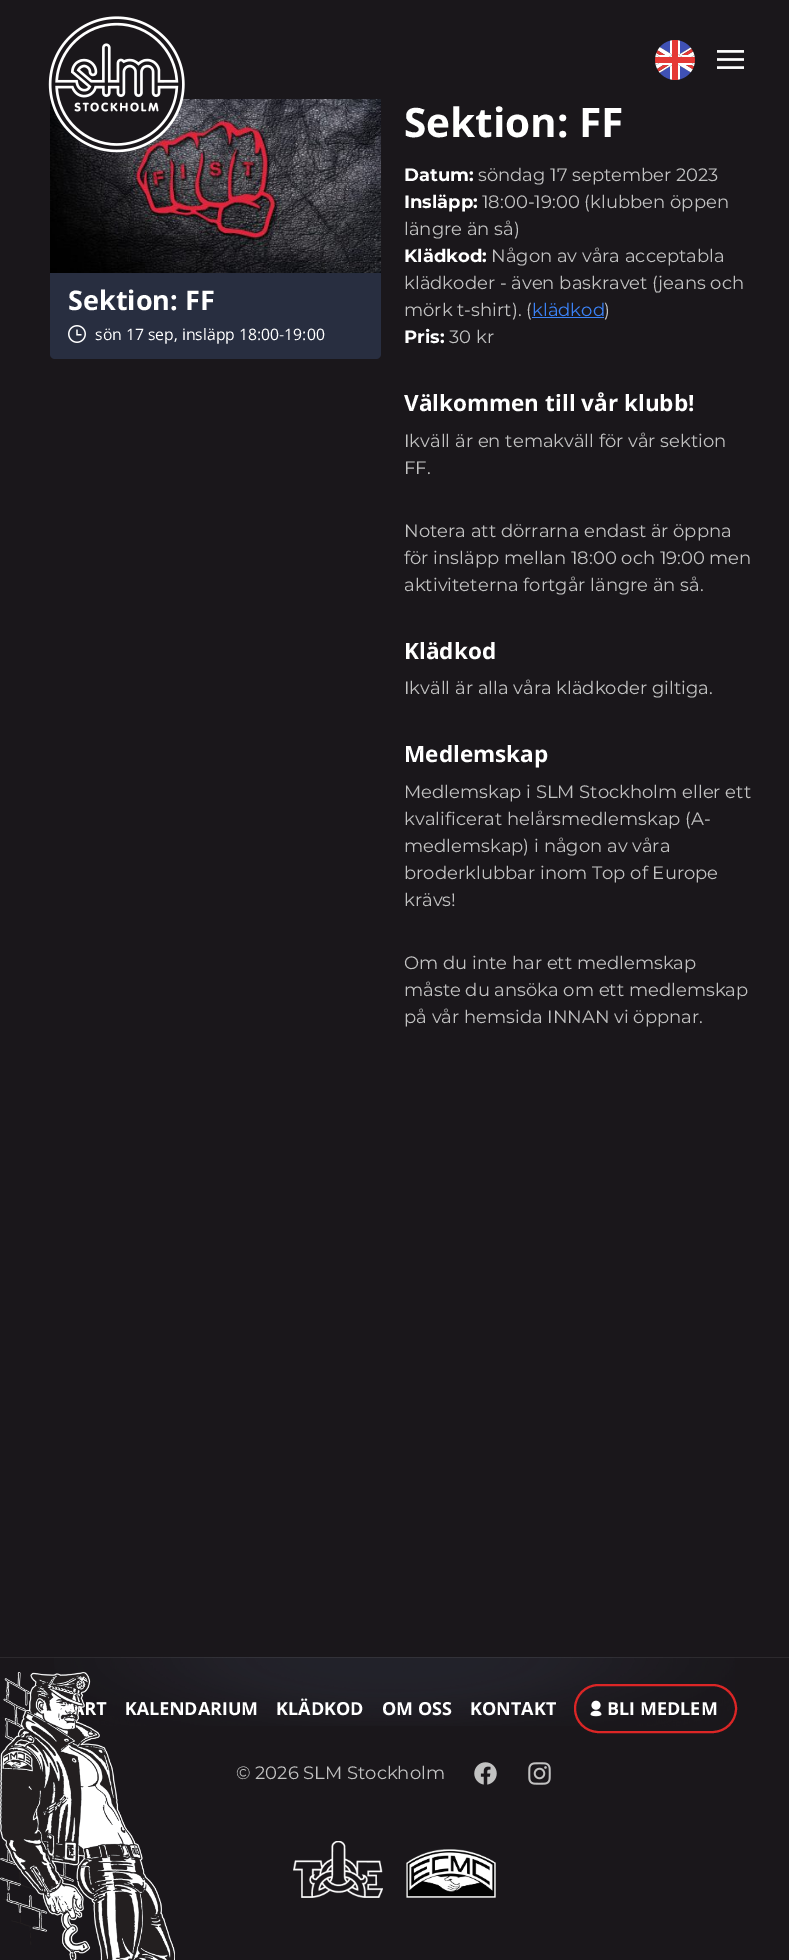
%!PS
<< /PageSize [789 1960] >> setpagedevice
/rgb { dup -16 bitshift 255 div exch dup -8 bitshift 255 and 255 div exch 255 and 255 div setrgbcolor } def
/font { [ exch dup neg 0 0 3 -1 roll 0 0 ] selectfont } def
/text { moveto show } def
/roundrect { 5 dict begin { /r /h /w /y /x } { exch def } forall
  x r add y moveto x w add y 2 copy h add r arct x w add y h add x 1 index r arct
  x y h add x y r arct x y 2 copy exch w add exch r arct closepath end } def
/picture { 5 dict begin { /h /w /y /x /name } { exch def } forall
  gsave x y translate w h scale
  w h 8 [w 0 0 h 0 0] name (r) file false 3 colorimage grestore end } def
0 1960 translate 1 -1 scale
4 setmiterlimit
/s1 { /OpenSans-Bold 27 font 16#FFFFFF rgb } def
/s2 { /OpenSans-Regular 15.75 font 16#FFFFFF rgb } def
/s3 { /OpenSans-Bold 40.5 font 16#FFFFFF rgb } def
/s4 { /Montserrat-Bold 18 font 16#FFFFFF rgb } def
/s5 { /Montserrat-Regular 18 font 16#C2C2C2 rgb } def
/s6 { /Montserrat-Regular 18 font 16#3B82F6 rgb } def
/s7 { /OpenSans-Bold 22.5 font 16#FFFFFF rgb } def
/s8 { /OpenSans-Bold 18 font 16#FFFFFF rgb } def
16#1A171B rgb
0 0 789 1960 rectfill
16#282E40 rgb
50 99 331 260 5 roundrect fill
(pic4.raw) 50 99 331 174 picture
(pic1.raw) 48 16 137 137 picture
(pic2.raw) 717 50 27 19 picture
(pic3.raw) 655 40 40 40 picture
s1
(Sektion: FF) 68 310 text
(pic5.raw) 68 325 18 18 picture
s2
(sön 17 sep, insläpp 18:00-19:00) 95 340 text
s3
(Sektion: FF) 404 137 text
s4
(Datum:) 404 181 text
s5
(söndag 17 september 2023) 478 181 text
s4
(Insläpp:) 404 208 text
s5
(18:00-19:00 \(klubben öppen) 482 208 text
(längre än så\)) 404 235 text
s4
(Klädkod:) 404 262 text
s5
(Någon av våra acceptabla) 491 262 text
(klädkoder - även baskravet \(jeans och) 404 289 text
(mörk t-shirt\). \() 404 316 text
s6
(klädkod) 532 316 text
532 317 72 1 rectfill
s5
(\)) 604 316 text
s4
(Pris:) 404 343 text
s5
(30 kr) 449 343 text
s7
(Välkommen till vår klubb!) 404 411 text
s5
(Ikväll är en temakväll för vår sektion) 404 447 text
(FF.) 404 474 text
(Notera att dörrarna endast är öppna) 404 537 text
(för insläpp mellan 18:00 och 19:00 men) 404 564 text
(aktiviteterna fortgår längre än så.) 404 591 text
s7
(Klädkod) 404 659 text
s5
(Ikväll är alla våra klädkoder giltiga.) 404 694 text
s7
(Medlemskap) 404 762 text
s5
(Medlemskap i SLM Stockholm eller ett) 404 798 text
(kvalificerat helårsmedlemskap \(A-) 404 825 text
(medlemskap\) i någon av våra) 404 852 text
(broderklubbar inom Top of Europe) 404 879 text
(krävs!) 404 906 text
(Om du inte har ett medlemskap) 404 969 text
(måste du ansöka om ett medlemskap) 404 996 text
(på vår hemsida INNAN vi öppnar.) 404 1023 text
(pic7.raw) 0 1657 789 69 picture
s8
(RT) 84 1715 text
(KALENDARIUM) 125 1715 text
(pic6.raw) 0 1672 175 288 picture
(KLÄDKOD) 276 1715 text
(OM OSS) 382 1715 text
(KONTAKT) 470 1715 text
16#DC2626 rgb
2 setlinewidth
575 1685 161 47 23.5 roundrect stroke
(pic8.raw) 590 1700 12 17 picture
s8
(BLI MEDLEM) 607 1715 text
s5
(© 2026 SLM Stockholm) 236 1779 text
(pic9.raw) 474 1762 23 23 picture
(pic10.raw) 528 1762 23 23 picture
(pic11.raw) 293 1841 90 57 picture
(pic12.raw) 406 1849 90 49 picture
showpage
